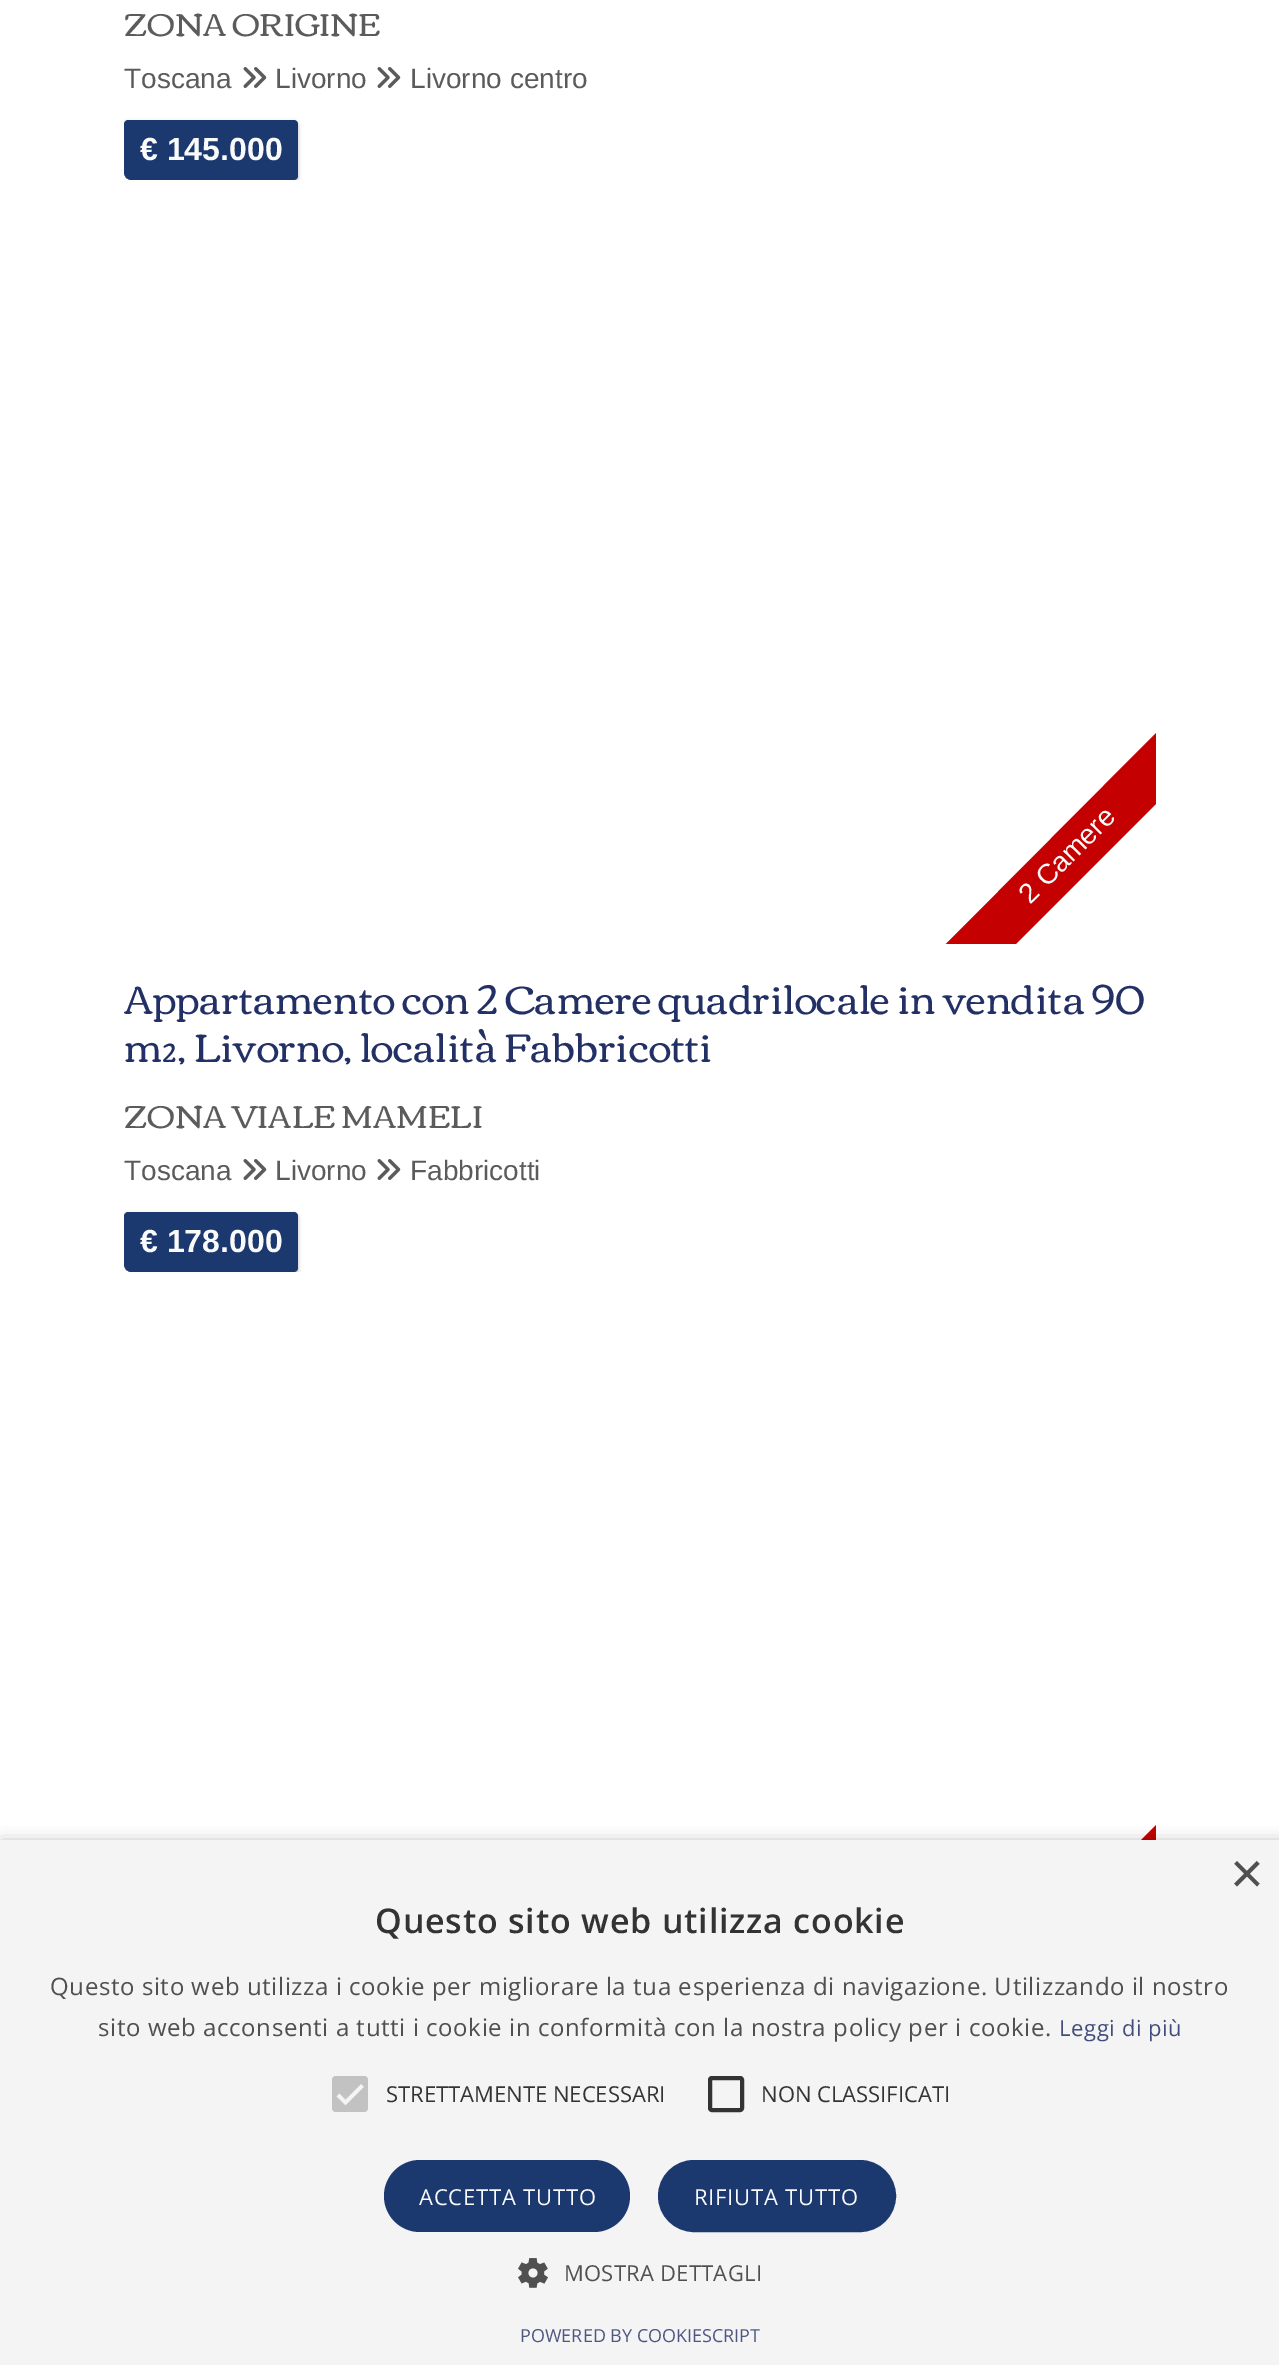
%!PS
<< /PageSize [1279 2365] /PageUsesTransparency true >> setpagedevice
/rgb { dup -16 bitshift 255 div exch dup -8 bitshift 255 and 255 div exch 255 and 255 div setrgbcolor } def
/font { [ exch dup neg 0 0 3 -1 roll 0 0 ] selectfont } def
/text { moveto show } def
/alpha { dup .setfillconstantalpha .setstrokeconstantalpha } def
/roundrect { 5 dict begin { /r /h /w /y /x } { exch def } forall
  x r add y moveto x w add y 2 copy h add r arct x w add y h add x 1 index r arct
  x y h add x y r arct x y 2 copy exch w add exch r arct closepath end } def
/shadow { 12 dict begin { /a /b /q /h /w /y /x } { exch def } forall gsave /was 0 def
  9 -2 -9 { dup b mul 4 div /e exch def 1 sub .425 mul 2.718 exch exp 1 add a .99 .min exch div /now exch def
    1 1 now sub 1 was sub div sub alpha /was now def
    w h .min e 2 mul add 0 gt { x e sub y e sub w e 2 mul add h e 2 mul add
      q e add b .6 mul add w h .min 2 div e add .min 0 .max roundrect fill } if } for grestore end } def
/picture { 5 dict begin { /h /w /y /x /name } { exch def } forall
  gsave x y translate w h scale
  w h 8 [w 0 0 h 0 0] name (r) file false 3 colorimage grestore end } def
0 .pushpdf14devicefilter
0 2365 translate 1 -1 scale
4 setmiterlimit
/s1 { /Corben-Regular 32 font 16#5C5B5C rgb } def
/s2 { /LiberationSans-Regular 28 font 16#5C5B5C rgb } def
/s3 { /LiberationSans-Bold 32 font 16#FAFAFA rgb } def
/s4 { /Corben-Regular 40 font 16#233066 rgb } def
/s5 { /LiberationSans-Regular 58 font 16#505050 rgb } def
/s6 { /OpenSans-Regular 22 font 16#333333 rgb } def
/s7 { /OpenSans-Regular 18 font 16#4D5782 rgb } def
16#FFFFFF rgb
0 0 1279 2365 rectfill
s1
(ZONA ORIGINE) 124 36 text
s2
(Toscana) 124 88 text
(pic1.raw) 243 67 24 21 picture
(Livorno) 275 88 text
(pic1.raw) 377 67 24 21 picture
(Livorno centro) 410 88 text
gsave
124 -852 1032 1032 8 roundrect clip newpath
16#000000 rgb
124 122 174 60 4 2 0.3 shadow
grestore
16#1B386F rgb
128 120 moveto 294 120 lineto 296 120 298 122 298 124 curveto 298 176 lineto 298 178 296 180 294 180 curveto 132 180 lineto 127.5 180 124 176.5 124 172 curveto 124 124 lineto 124 122 126 120 128 120 curveto closepath fill
s3
(€ 145.000) 140 160 text
gsave
124 240 1032 704 rectclip
16#C40000 rgb
945 945 moveto 1156 733 lineto 1156 804 lineto 1015 945 lineto closepath fill
grestore
/LiberationSans-Regular 28 font
gsave 1030 905 translate -45 rotate 0 0 moveto (2 Camere) show grestore
s4
(Appartamento con 2 Camere quadrilocale in vendita 90) 124 1014 text
(m², Livorno, località Fabbricotti) 124 1062 text
s1
(ZONA VIALE MAMELI) 124 1128 text
s2
(Toscana) 124 1180 text
(pic1.raw) 243 1159 24 21 picture
(Livorno) 275 1180 text
(pic1.raw) 377 1159 24 21 picture
(Fabbricotti) 410 1180 text
gsave
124 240 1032 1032 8 roundrect clip newpath
16#000000 rgb
124 1214 174 60 4 2 0.3 shadow
grestore
16#1B386F rgb
128 1212 moveto 294 1212 lineto 296 1212 298 1214 298 1216 curveto 298 1268 lineto 298 1270 296 1272 294 1272 curveto 132 1272 lineto 127.5 1272 124 1268.5 124 1264 curveto 124 1216 lineto 124 1214 126 1212 128 1212 curveto closepath fill
s3
(€ 178.000) 140 1252 text
16#C40000 rgb
945 2037 moveto 1156 1825 lineto 1156 1896 lineto 1015 2037 lineto closepath fill
16#000000 rgb
2 1844 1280 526 0 8 0.35 shadow
16#F4F4F4 rgb
0 1840 1279 525 rectfill
s5
(×) 1230 1893 text
/OpenSans-SemiBold 34 font
16#333333 rgb
375 1933 moveto 0.8 0 (Questo sito web utilizza cookie) ashow
/OpenSans-Regular 24 font
16#505050 rgb
50 1995 moveto 0.6 0 (Questo sito web utilizza i cookie per migliorare la tua esperienza di navigazione. Utilizzando il nostro) ashow
98 2036 moveto 0.6 0 (sito web acconsenti a tutti i cookie in conformità con la nostra policy per i cookie.) ashow
/OpenSans-Regular 22 font
16#424D7B rgb
1059 2036 moveto 0.6 0 (Leggi di più) ashow
16#C2C2C2 rgb
332 2076 36 36 4 roundrect fill
16#F4F4F4 rgb
3.6 setlinewidth
338 2095 moveto 345.5 2102.5 lineto 362.5 2085.5 lineto stroke
s6
(STRETTAMENTE NECESSARI) 386 2102 text
4 setlinewidth
710 2078 32 32 2 roundrect stroke
(NON CLASSIFICATI) 761 2102 text
16#1B386F rgb
384 2160 246 72 36 roundrect fill
16#FAFAFA rgb
419 2205 moveto 0.8 0 (ACCETTA TUTTO) ashow
16#1B386F rgb
659 2161 236 70 35 roundrect gsave fill grestore
2 setlinewidth
stroke
16#FAFAFA rgb
694 2205 moveto 0.8 0 (RIFIUTA TUTTO) ashow
(pic2.raw) 518 2258 30 30 picture
16#505050 rgb
564 2281 moveto 0.25 0 (MOSTRA DETTAGLI) ashow
s7
(POWERED BY COOKIESCRIPT) 520 2342 text
.poppdf14devicefilter showpage
